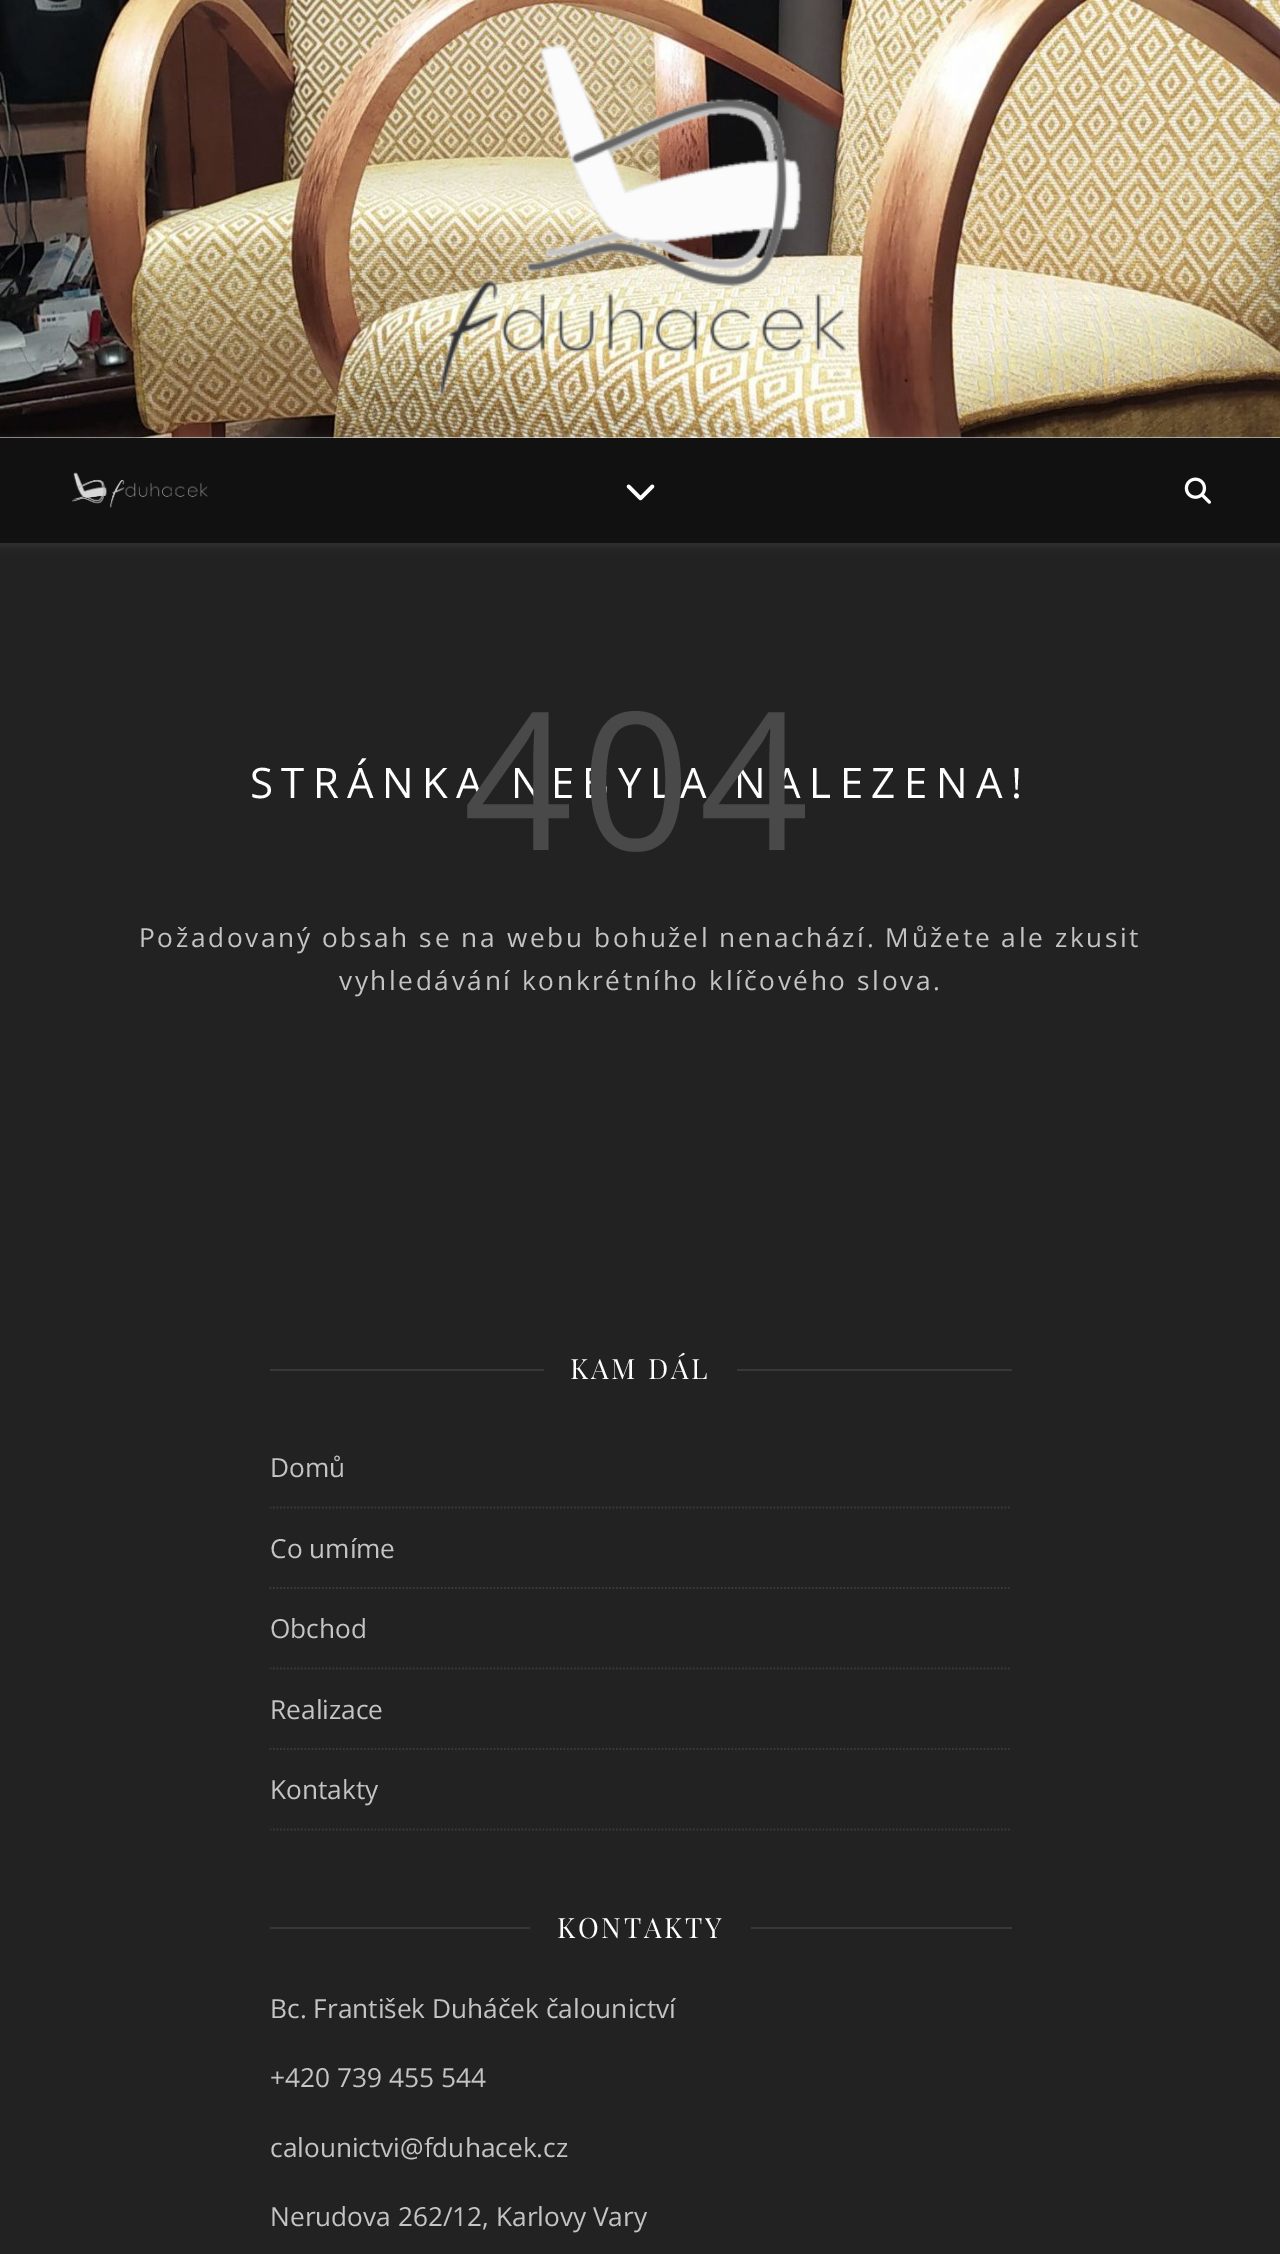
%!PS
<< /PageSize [1280 2254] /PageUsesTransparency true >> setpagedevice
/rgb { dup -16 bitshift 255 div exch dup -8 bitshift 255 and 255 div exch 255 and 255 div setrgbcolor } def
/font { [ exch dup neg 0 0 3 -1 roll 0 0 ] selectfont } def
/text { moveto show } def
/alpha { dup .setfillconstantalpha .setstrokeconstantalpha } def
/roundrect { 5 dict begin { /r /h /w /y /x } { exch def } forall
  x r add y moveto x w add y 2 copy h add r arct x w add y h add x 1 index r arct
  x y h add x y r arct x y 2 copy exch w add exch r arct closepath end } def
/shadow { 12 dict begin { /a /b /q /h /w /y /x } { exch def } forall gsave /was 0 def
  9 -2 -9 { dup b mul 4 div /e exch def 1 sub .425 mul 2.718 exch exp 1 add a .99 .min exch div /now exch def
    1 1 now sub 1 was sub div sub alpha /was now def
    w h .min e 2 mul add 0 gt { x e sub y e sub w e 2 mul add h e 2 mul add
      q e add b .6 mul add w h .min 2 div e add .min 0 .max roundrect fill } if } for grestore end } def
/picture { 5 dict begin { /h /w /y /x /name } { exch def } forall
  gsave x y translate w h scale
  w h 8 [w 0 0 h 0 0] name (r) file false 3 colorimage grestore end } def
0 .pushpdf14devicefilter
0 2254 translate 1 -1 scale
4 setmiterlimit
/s1 { /OpenSans-Regular 26.25 font 16#C4C4C4 rgb } def
16#222222 rgb
0 0 1280 2254 rectfill
16#FFFFFF rgb
0 437 1280 1 rectfill
(pic1.raw) 0 0 1280 438 picture
(pic2.raw) 439 44 407 354 picture
0 439 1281 105 0 4.5 0.1 shadow
16#111111 rgb
0 438 1280 105 rectfill
(pic3.raw) 72 472 136 36 picture
(pic4.raw) 626 484 29 17 picture
(pic5.raw) 1184 477 27 27 picture
/OpenSans-Regular 42 font
16#FFFFFF rgb
250 798 moveto 8.4 0 (STRÁNKA NEBYLA NALEZENA!) ashow
/OpenSans-Regular 192 font
16#494949 rgb
463 850 moveto 8.4 0 (404) ashow
/OpenSans-Regular 26.25 font
16#C4C4C4 rgb
139 947 moveto 2.62 0 (Požadovaný obsah se na webu bohužel nenachází. Můžete ale zkusit) ashow
339 990 moveto 2.62 0 (vyhledávání konkrétního klíčového slova.) ashow
16#383838 rgb
270 1369 274 2 rectfill
/PlayfairDisplay-Regular 28 font
16#FFFFFF rgb
570 1379 moveto 2.62 0 (KAM DÁL) ashow
16#383838 rgb
737 1369 275 2 rectfill
gsave
270 1342 742 489 rectclip
1.8 setlinewidth
[1.75 1.75] 0 setdash
269.5 1507.5 moveto 1011.5 1507.5 lineto stroke
grestore
s1
(Domů) 270 1477 text
16#383838 rgb
1.8 setlinewidth
[1.75 1.75] 0 setdash
269.5 1588 moveto 1011.5 1588 lineto stroke
s1
(Co umíme) 270 1558 text
gsave
270 1342 742 489 rectclip
16#383838 rgb
269.5 1668.5 moveto 1011.5 1668.5 lineto stroke
grestore
(Obchod) 270 1638 text
16#383838 rgb
269.5 1749 moveto 1011.5 1749 lineto stroke
s1
(Realizace) 270 1719 text
gsave
270 1342 742 489 rectclip
16#383838 rgb
269.5 1829.5 moveto 1011.5 1829.5 lineto stroke
grestore
(Kontakty) 270 1799 text
16#383838 rgb
270 1927 260 2 rectfill
/PlayfairDisplay-Regular 28 font
16#FFFFFF rgb
557 1938 moveto 2.62 0 (KONTAKTY) ashow
16#383838 rgb
751 1927 261 2 rectfill
s1
(Bc. František Duháček čalounictví) 270 2018 text
(+420 739 455 544) 270 2087 text
(calounictvi@fduhacek.cz) 270 2157 text
(Nerudova 262/12, Karlovy Vary) 270 2226 text
.poppdf14devicefilter showpage
